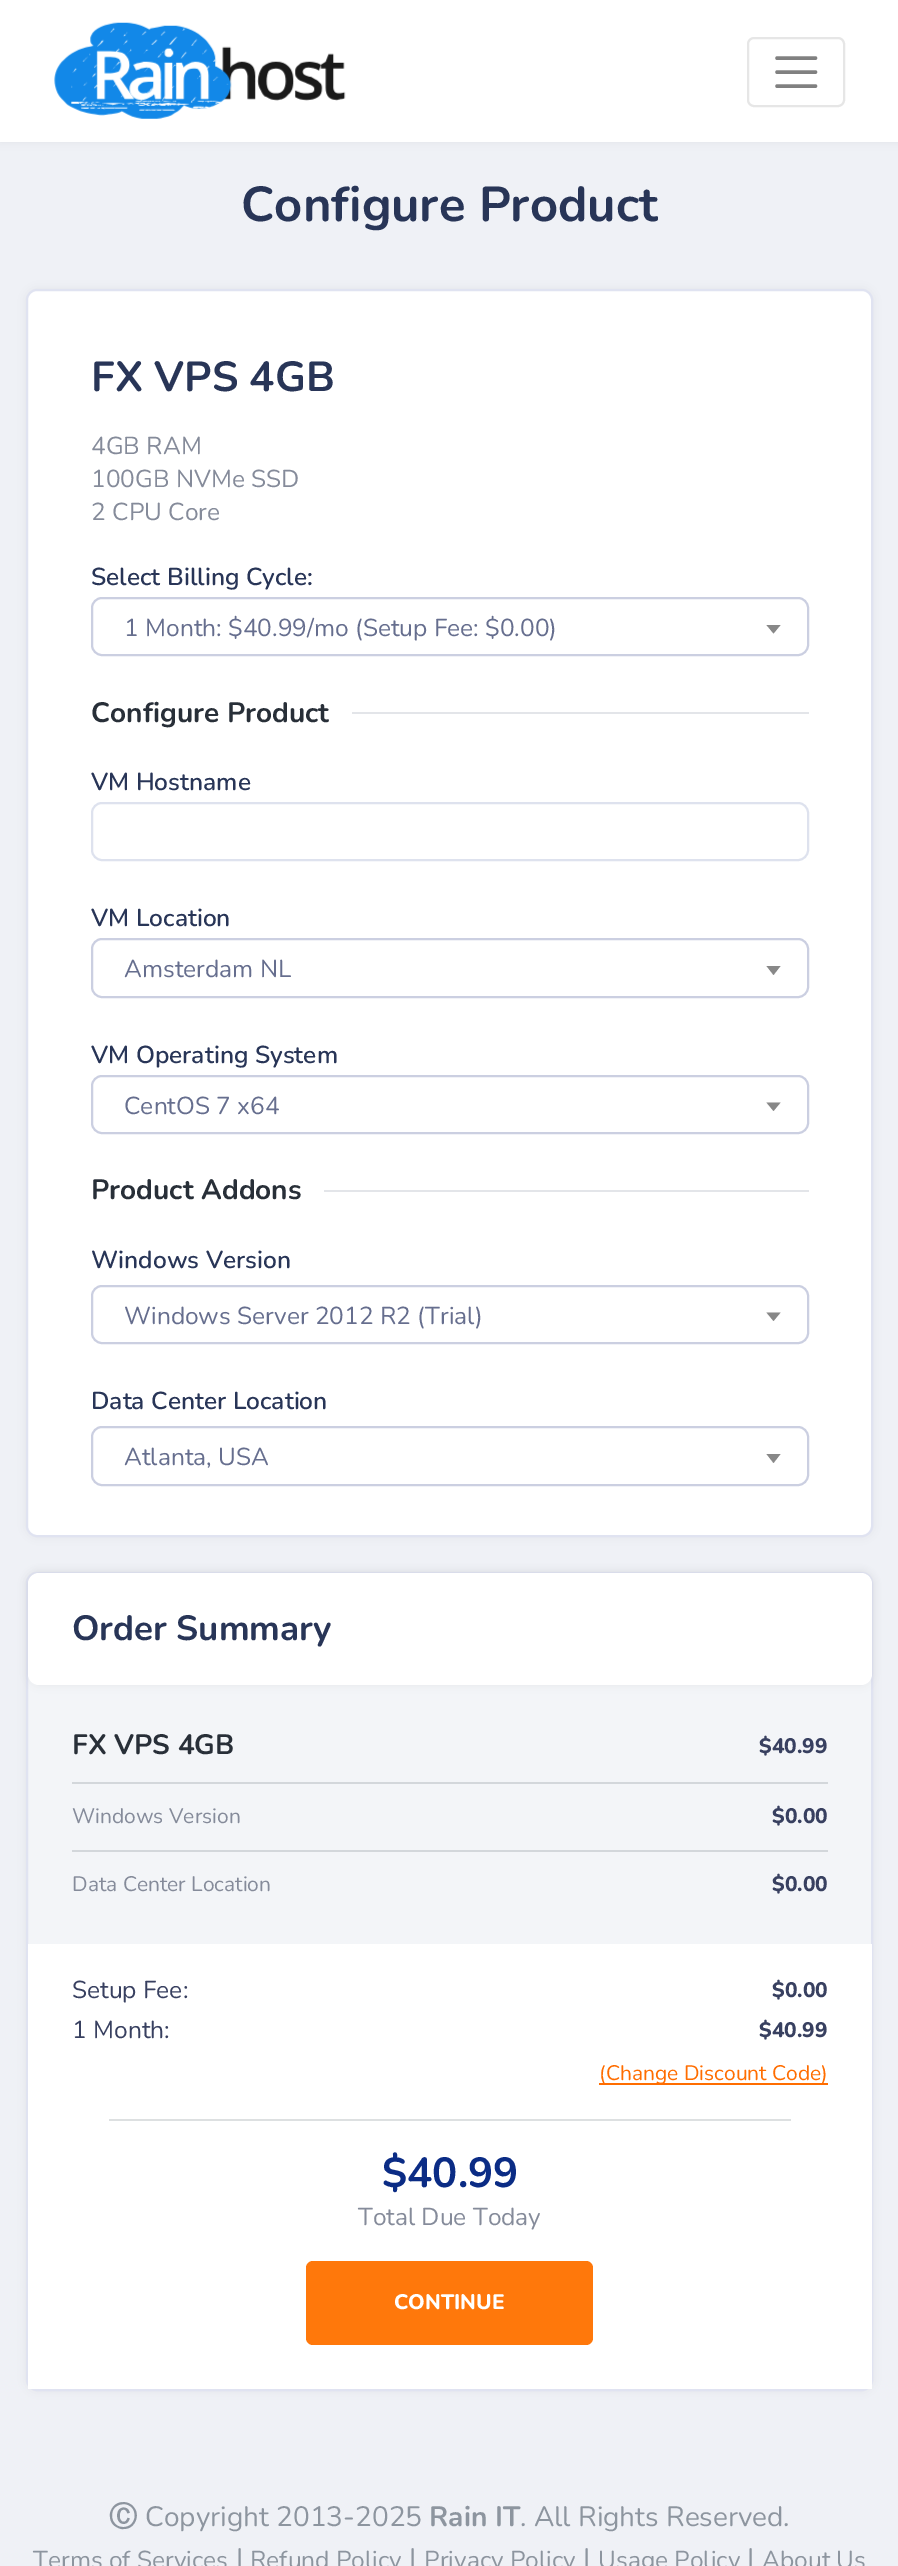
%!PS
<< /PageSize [898 2566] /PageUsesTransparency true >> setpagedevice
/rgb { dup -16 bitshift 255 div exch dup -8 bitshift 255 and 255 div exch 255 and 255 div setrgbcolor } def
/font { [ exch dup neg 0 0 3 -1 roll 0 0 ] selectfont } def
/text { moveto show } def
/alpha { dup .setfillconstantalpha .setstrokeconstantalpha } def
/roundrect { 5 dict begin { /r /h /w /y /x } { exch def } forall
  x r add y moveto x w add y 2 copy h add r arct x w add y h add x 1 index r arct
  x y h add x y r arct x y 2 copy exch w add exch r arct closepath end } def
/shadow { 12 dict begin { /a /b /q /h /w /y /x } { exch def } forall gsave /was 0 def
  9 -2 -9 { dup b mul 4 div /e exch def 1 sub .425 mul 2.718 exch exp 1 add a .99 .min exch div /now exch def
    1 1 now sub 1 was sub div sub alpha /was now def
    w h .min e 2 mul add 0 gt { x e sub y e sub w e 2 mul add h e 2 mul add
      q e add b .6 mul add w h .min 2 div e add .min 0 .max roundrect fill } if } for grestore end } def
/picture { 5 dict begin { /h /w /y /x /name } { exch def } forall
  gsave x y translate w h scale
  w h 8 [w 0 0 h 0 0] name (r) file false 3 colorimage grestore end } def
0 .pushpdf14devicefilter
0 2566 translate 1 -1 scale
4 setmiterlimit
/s1 { /Nunito-Bold 49 font 16#283557 rgb } def
/s2 { /Nunito-Bold 42 font 16#283557 rgb } def
/s3 { /Nunito-Regular 24.5 font 16#858B9A rgb } def
/s4 { /Nunito-SemiBold 24.5 font 16#283557 rgb } def
/s5 { /Nunito-Regular 24.5 font 16#666E8E rgb } def
/s6 { /Nunito-Bold 28 font 16#282F38 rgb } def
/s7 { /Nunito-Bold 35 font 16#283557 rgb } def
/s8 { /Nunito-ExtraBold 21 font 16#384060 rgb } def
/s9 { /Nunito-Regular 21 font 16#858B9A rgb } def
/s10 { /Nunito-Regular 24.5 font 16#384060 rgb } def
/s11 { /Nunito-Regular 21 font 16#FF6D00 rgb } def
/s12 { /Nunito-Bold 42 font 16#0B2C85 rgb } def
/s13 { /Nunito-ExtraBold 21 font 16#FFFFFF rgb } def
/s14 { /WenQuanYiZenHei-Bold 28 font 16#8D959F rgb } def
/s15 { /Nunito-Regular 28 font 16#8D959F rgb } def
/s16 { /Nunito-Bold 28 font 16#8D959F rgb } def
/s17 { /Nunito-Regular 24.5 font 16#8D959F rgb } def
16#EFF1F6 rgb
0 0 898 2566 rectfill
16#000000 rgb
0 0 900 142 0 5 0.05 shadow
16#FFFFFF rgb
0 0 898 142 rectfill
(pic1.raw) 54 22 292 97 picture
16#E6E6E6 rgb
2 setlinewidth
748 38 96 68 6 roundrect stroke
16#808080 rgb
3.5 setlinewidth
1 setlinecap
777 58 moveto 815.5 58 lineto 777 72 moveto 815.5 72 lineto 777 86 moveto 815.5 86 lineto stroke
s1
(Configure Product) 241 221 text
16#000000 rgb
26 289 847 1248 11 5 0.05 shadow
16#FFFFFF rgb
27 290 845 1246 10 roundrect gsave fill grestore
16#E0E3F1 rgb
2 setlinewidth
0 setlinecap
stroke
s2
(FX VPS 4GB) 91 391 text
s3
(4GB RAM) 91 454 text
(100GB NVMe SSD) 91 487 text
(2 CPU Core) 91 520 text
s4
(Select Billing Cycle:) 91 585 text
16#CBCFE1 rgb
92 598 716 57 10 roundrect stroke
s5
(1 Month: $40.99/mo \(Setup Fee: $0.00\)) 124 636 text
16#888888 rgb
766.5 625 moveto 780.5 625 lineto 773.5 633.5 lineto closepath fill
s6
(Configure Product) 91 722 text
16#E3E5E9 rgb
352 712 457 2 rectfill
s4
(VM Hostname) 91 790 text
16#DEE2EE rgb
92 803 716 57 10 roundrect stroke
s4
(VM Location) 91 926 text
16#CBCFE1 rgb
92 939 716 58 10 roundrect stroke
s5
(Amsterdam NL) 124 977 text
16#888888 rgb
766.5 966 moveto 780.5 966 lineto 773.5 975 lineto closepath fill
s4
(VM Operating System) 91 1063 text
16#CBCFE1 rgb
92 1076 716 57 10 roundrect stroke
s5
(CentOS 7 x64) 124 1114 text
16#888888 rgb
766.5 1102.5 moveto 780.5 1102.5 lineto 773.5 1111 lineto closepath fill
s6
(Product Addons) 91 1199 text
16#E3E5E9 rgb
324 1190 485 2 rectfill
s4
(Windows Version) 91 1268 text
16#CBCFE1 rgb
92 1286 716 57 10 roundrect stroke
s5
(Windows Server 2012 R2 \(Trial\)) 124 1324 text
16#888888 rgb
766.5 1312.5 moveto 780.5 1312.5 lineto 773.5 1321 lineto closepath fill
s4
(Data Center Location) 91 1409 text
16#CBCFE1 rgb
92 1427 716 58 10 roundrect stroke
s5
(Atlanta, USA) 124 1465 text
16#888888 rgb
766.5 1454 moveto 780.5 1454 lineto 773.5 1463 lineto closepath fill
16#000000 rgb
26 1572 847 819 11 5 0.05 shadow
16#F3F5F8 rgb
27 1573 845 817 10 roundrect gsave fill grestore
16#E0E3F1 rgb
stroke
16#000000 rgb
28 1573 844 112 11 5 0.05 shadow
16#FFFFFF rgb
28 1573 844 112 11 roundrect fill
s7
(Order Summary) 72 1640 text
s6
(FX VPS 4GB) 72 1754 text
s8
($40.99) 759 1753 text
16#D3D7DB rgb
72 1782 756 2 rectfill
s9
(Windows Version) 72 1823 text
s8
($0.00) 772 1823 text
16#D3D7DB rgb
72 1850 756 2 rectfill
s9
(Data Center Location) 72 1891 text
s8
($0.00) 772 1891 text
16#FFFFFF rgb
28 1944 844 445 rectfill
s10
(Setup Fee:) 72 1998 text
s8
($0.00) 772 1997 text
s10
(1 Month:) 72 2038 text
s8
($40.99) 759 2037 text
16#FF6D00 rgb
599 2083 229 2 rectfill
s11
(\(Change Discount Code\)) 599 2080 text
16#DDE0E1 rgb
109 2119 682 2 rectfill
s12
($40.99) 382 2187 text
s3
(Total Due Today) 358 2225 text
16#FF780B rgb
306 2261 287 84 7 roundrect fill
s13
(CONTINUE) 394 2309 text
s14
(Ⓒ) 109 2526 text
s15
(Copyright 2013-2025) 145 2526 text
s16
(Rain IT) 429 2526 text
s15
(. All Rights Reserved.) 520 2526 text
s17
(Terms of Services) 33 2568 text
s15
(|) 236 2568 text
s17
(Refund Policy) 250 2568 text
s15
(|) 409 2568 text
s17
(Privacy Policy) 424 2568 text
s15
(|) 583 2568 text
s17
(Usage Policy) 598 2568 text
s15
(|) 747 2568 text
s17
(About Us) 762 2568 text
.poppdf14devicefilter showpage
